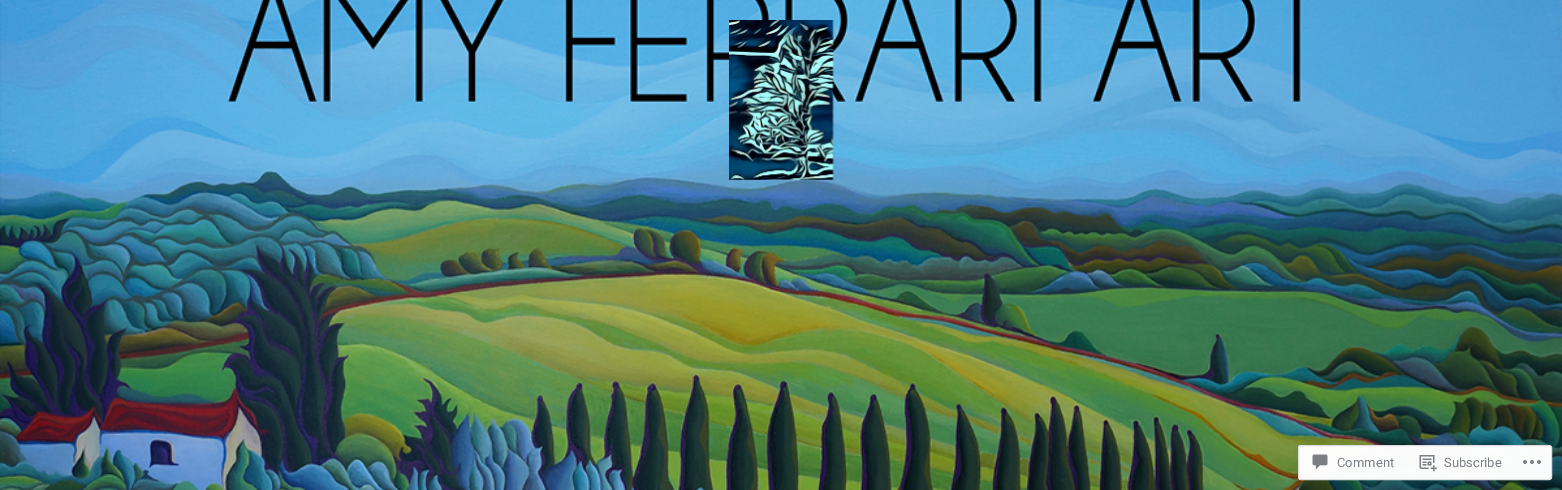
%!PS
<< /PageSize [1562 490] /PageUsesTransparency true >> setpagedevice
/rgb { dup -16 bitshift 255 div exch dup -8 bitshift 255 and 255 div exch 255 and 255 div setrgbcolor } def
/font { [ exch dup neg 0 0 3 -1 roll 0 0 ] selectfont } def
/text { moveto show } def
/alpha { dup .setfillconstantalpha .setstrokeconstantalpha } def
/roundrect { 5 dict begin { /r /h /w /y /x } { exch def } forall
  x r add y moveto x w add y 2 copy h add r arct x w add y h add x 1 index r arct
  x y h add x y r arct x y 2 copy exch w add exch r arct closepath end } def
/picture { 5 dict begin { /h /w /y /x /name } { exch def } forall
  gsave x y translate w h scale
  w h 8 [w 0 0 h 0 0] name (r) file false 3 colorimage grestore end } def
0 .pushpdf14devicefilter
0 490 translate 1 -1 scale
4 setmiterlimit
/s1 { /Roboto-Regular 13 font 16#7B7F84 rgb } def
16#FFFFFF rgb
0 0 1562 490 rectfill
(pic1.raw) 0 0 1562 490 picture
(pic2.raw) 729 20 105 160 picture
0.98 alpha
1298 445 254 35 3 roundrect fill
16#DCDCDE rgb
1298.5 445.5 253 34 2.5 roundrect stroke
1 alpha
(pic3.raw) 1312 454 16 16 picture
s1
(Comment) 1337 467 text
(pic4.raw) 1419 455 18 17 picture
(Subscribe) 1444 467 text
(pic5.raw) 1523 460 18 4 picture
.poppdf14devicefilter showpage
